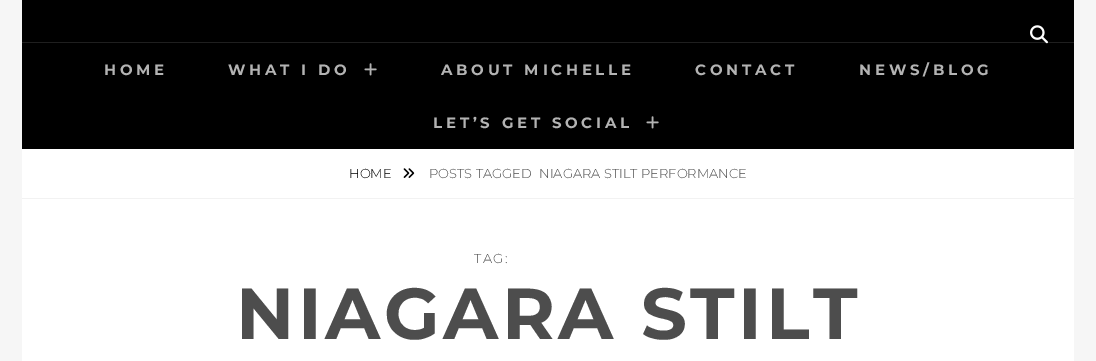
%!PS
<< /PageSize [1096 361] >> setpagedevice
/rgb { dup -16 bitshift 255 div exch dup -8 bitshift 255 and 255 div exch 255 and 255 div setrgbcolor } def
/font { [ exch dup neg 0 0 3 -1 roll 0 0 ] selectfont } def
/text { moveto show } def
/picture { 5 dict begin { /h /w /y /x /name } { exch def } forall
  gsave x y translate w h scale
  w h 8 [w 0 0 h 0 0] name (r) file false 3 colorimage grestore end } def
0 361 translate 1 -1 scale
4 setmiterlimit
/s1 { /Montserrat-Light 13 font 16#000000 rgb } def
/s2 { /Montserrat-Light 13 font 16#4D4D4D rgb } def
16#F6F6F6 rgb
0 0 1096 361 rectfill
16#FFFFFF rgb
22 149 1052 212 rectfill
16#000000 rgb
22 0 1052 149 rectfill
16#1F1F1F rgb
22 42 1052 1 rectfill
(pic1.raw) 1030 25 18 19 picture
/Montserrat-Bold 15 font
16#B3B3B3 rgb
104 75 moveto 3.75 0 (HOME) ashow
228 75 moveto 3.75 0 (WHAT I DO) ashow
(pic2.raw) 364 63 13 13 picture
441 75 moveto 3.75 0 (ABOUT MICHELLE) ashow
695 75 moveto 3.75 0 (CONTACT) ashow
859 75 moveto 3.75 0 (NEWS/BLOG) ashow
433 128 moveto 3.75 0 (LET’S GET SOCIAL) ashow
(pic2.raw) 646 116 13 13 picture
16#F2F2F2 rgb
22 198 1052 1 rectfill
s1
(HOME) 349 178 text
(pic3.raw) 403 168 12 10 picture
s2
(POSTS TAGGED) 429 178 text
(NIAGARA STILT PERFORMANCE) 539 178 text
474 263 moveto 1.5 0 (TAG:) ashow
/Montserrat-Bold 72 font
236 339 moveto 3.6 0 (NIAGARA STILT) ashow
showpage
